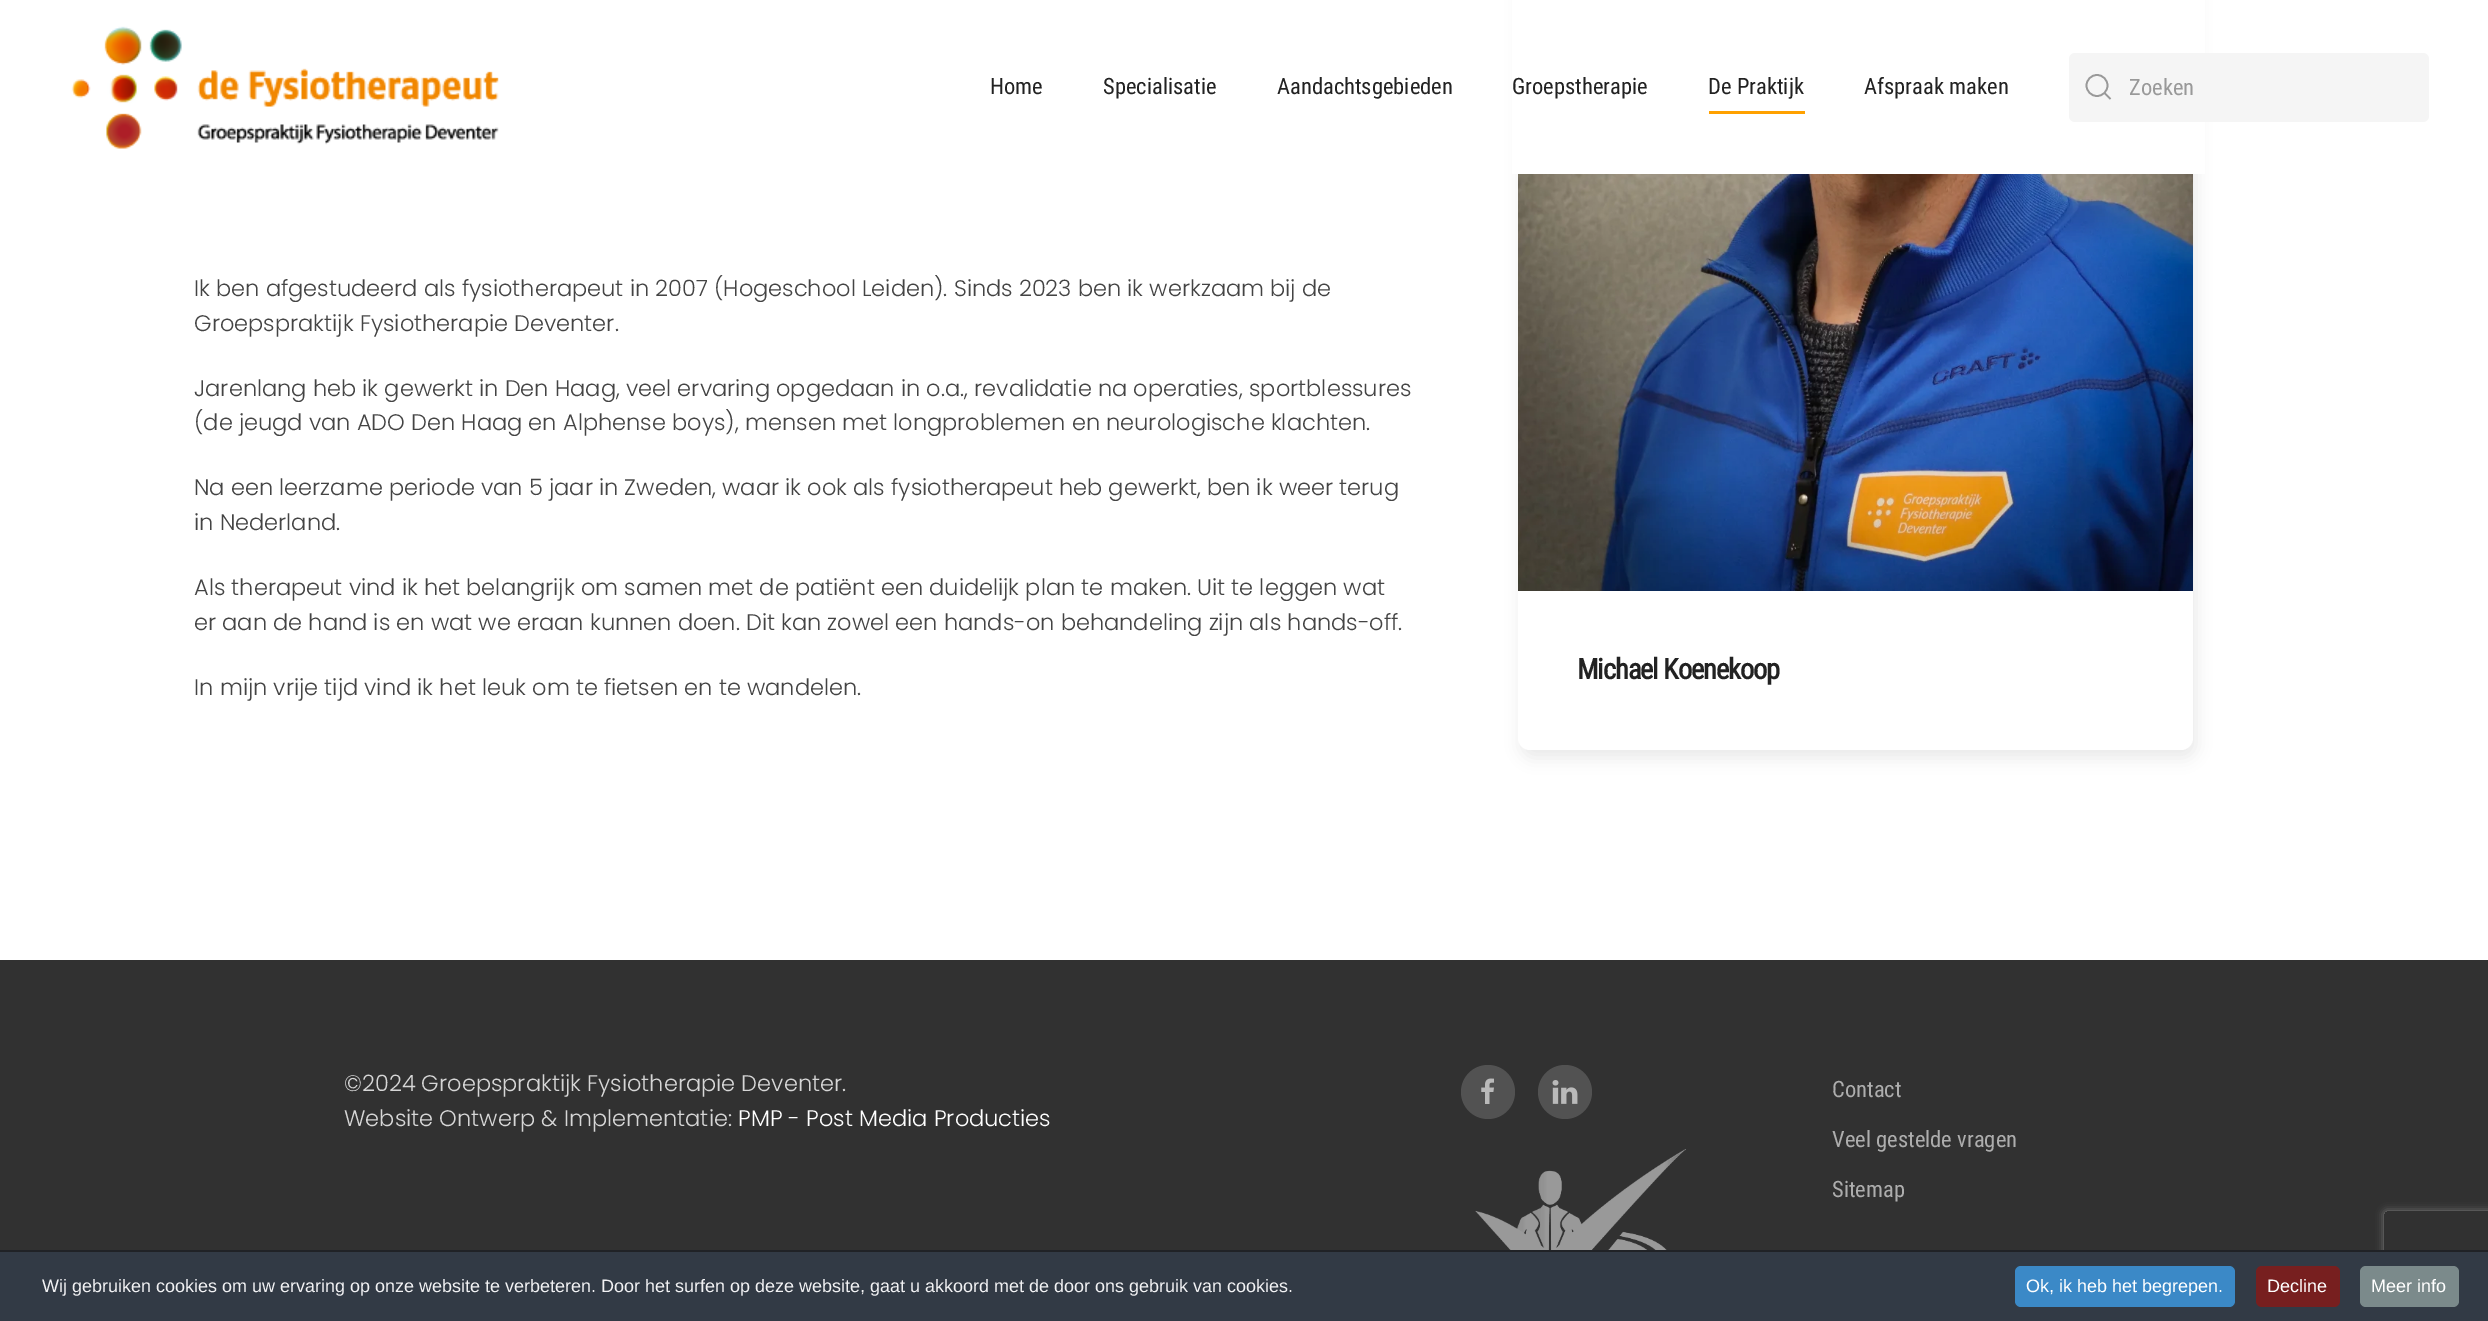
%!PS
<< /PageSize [2488 1321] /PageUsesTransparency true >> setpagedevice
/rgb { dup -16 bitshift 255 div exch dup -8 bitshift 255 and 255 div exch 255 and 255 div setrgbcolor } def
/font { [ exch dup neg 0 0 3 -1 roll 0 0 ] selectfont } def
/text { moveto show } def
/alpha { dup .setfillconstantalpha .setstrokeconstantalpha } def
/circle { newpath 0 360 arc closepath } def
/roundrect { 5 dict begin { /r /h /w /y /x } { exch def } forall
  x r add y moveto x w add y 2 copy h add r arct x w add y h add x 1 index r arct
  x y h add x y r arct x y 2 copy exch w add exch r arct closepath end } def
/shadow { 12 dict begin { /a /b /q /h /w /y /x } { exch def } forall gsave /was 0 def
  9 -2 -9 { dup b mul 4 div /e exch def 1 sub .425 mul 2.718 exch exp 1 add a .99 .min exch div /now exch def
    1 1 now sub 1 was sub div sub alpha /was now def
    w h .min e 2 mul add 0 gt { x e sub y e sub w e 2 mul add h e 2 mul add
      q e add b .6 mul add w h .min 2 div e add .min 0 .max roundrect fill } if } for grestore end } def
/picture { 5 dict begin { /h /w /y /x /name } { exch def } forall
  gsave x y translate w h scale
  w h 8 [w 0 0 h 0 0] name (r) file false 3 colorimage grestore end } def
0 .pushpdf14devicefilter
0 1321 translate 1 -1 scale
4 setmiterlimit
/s1 { /RobotoCondensed-Regular 22.5 font 16#222222 rgb } def
/s2 { /RobotoCondensed-Regular 22.5 font 16#999999 rgb } def
/s3 { /Poppins-Light 22.5 font 16#444444 rgb } def
/s4 { /Poppins-Light 22.5 font 16#D6D6D6 rgb } def
/s5 { /Poppins-Light 22.5 font 16#FFFFFF rgb } def
/s6 { /RobotoCondensed-Regular 22.5 font 16#ADADAD rgb } def
/s7 { /LiberationSans-Regular 18 font 16#F1F1F3 rgb } def
/s8 { /LiberationSans-Regular 18 font 16#FFFFFF rgb } def
16#FFFFFF rgb
0 0 2488 1321 rectfill
16#000000 rgb
1521 -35 675 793 12 7.5 0.08 shadow
16#FFFFFF rgb
1518 -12 675 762 12 roundrect fill
1512 0 693 174 rectfill
(pic1.raw) 71 26 428 123 picture
s1
(Home) 990 94 text
(Specialisatie) 1103 94 text
(Aandachtsgebieden) 1277 94 text
(Groepstherapie) 1512 94 text
(De Praktijk) 1708 94 text
16#FFA100 rgb
1709 111 96 3 rectfill
s1
(Afspraak maken) 1864 94 text
16#F5F5F5 rgb
2069 53 360 69 6 roundrect fill
16#999999 rgb
1.7 setlinewidth
2097 85.5 10.5 circle stroke
2104.5 93 moveto 2110.5 99 lineto closepath stroke
(Zoeken) 2129 95 text
s3
(Ik ben afgestudeerd als fysiotherapeut in 2007 \(Hogeschool Leiden\). Sinds 2023 ben ik werkzaam bij de) 194 296 text
(Groepspraktijk Fysiotherapie Deventer.) 194 331 text
(Jarenlang heb ik gewerkt in Den Haag, veel ervaring opgedaan in o.a., revalidatie na operaties, sportblessures) 194 396 text
(\(de jeugd van ADO Den Haag en Alphense boys\), mensen met longproblemen en neurologische klachten.) 194 430 text
(Na een leerzame periode van 5 jaar in Zweden, waar ik ook als fysiotherapeut heb gewerkt, ben ik weer terug) 194 495 text
(in Nederland.) 194 530 text
(Als therapeut vind ik het belangrijk om samen met de patiënt een duidelijk plan te maken. Uit te leggen wat) 194 595 text
(er aan de hand is en wat we eraan kunnen doen. Dit kan zowel een hands-on behandeling zijn als hands-off.) 194 630 text
(In mijn vrije tijd vind ik het leuk om te fietsen en te wandelen.) 194 695 text
(pic2.raw) 1518 174 675 417 picture
/RobotoCondensed-Bold 28.5 font
16#222222 rgb
1577 679 moveto -1.1 0 (Michael Koenekoop) ashow
16#313131 rgb
0 960 2488 290 rectfill
s4
(©2024 Groepspraktijk Fysiotherapie Deventer.) 344 1091 text
(Website Ontwerp & Implementatie:) 344 1126 text
s5
(PMP - Post Media Producties) 738 1126 text
16#525252 rgb
1488 1092 27 circle fill
(pic3.raw) 1481 1078 13 26 picture
1565 1092 27 circle fill
(pic4.raw) 1552 1080 26 24 picture
(pic5.raw) 1475 1149 211 101 picture
s6
(Contact) 1832 1097 text
(Veel gestelde vragen) 1832 1147 text
(Sitemap) 1832 1197 text
gsave
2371 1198 moveto 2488 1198 lineto 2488 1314 lineto 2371 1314 lineto closepath 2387 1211 moveto 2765 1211 lineto 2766.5 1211 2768 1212.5 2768 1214 curveto 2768 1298 lineto 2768 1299.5 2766.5 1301 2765 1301 curveto 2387 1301 lineto 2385.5 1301 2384 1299.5 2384 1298 curveto 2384 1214 lineto 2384 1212.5 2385.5 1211 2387 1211 curveto closepath eoclip newpath
16#808080 rgb
2384 1211 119 90 3 4 1 shadow
grestore
16#323A45 rgb
0 1252 2488 69 rectfill
16#202226 rgb
0 1250 2488 2 rectfill
s7
(Wij gebruiken cookies om uw ervaring op onze website te verbeteren. Door het surfen op deze website, gaat u akkoord met de door ons gebruik van cookies.) 42 1292 text
16#3B89C7 rgb
2015 1266 220 41 6 roundrect fill
s8
(Ok, ik heb het begrepen.) 2026 1292 text
16#771F1F rgb
2256 1266 84 41 6 roundrect fill
s8
(Decline) 2267 1292 text
16#7B8A8B rgb
2360 1266 99 41 6 roundrect fill
s8
(Meer info) 2371 1292 text
.poppdf14devicefilter showpage
